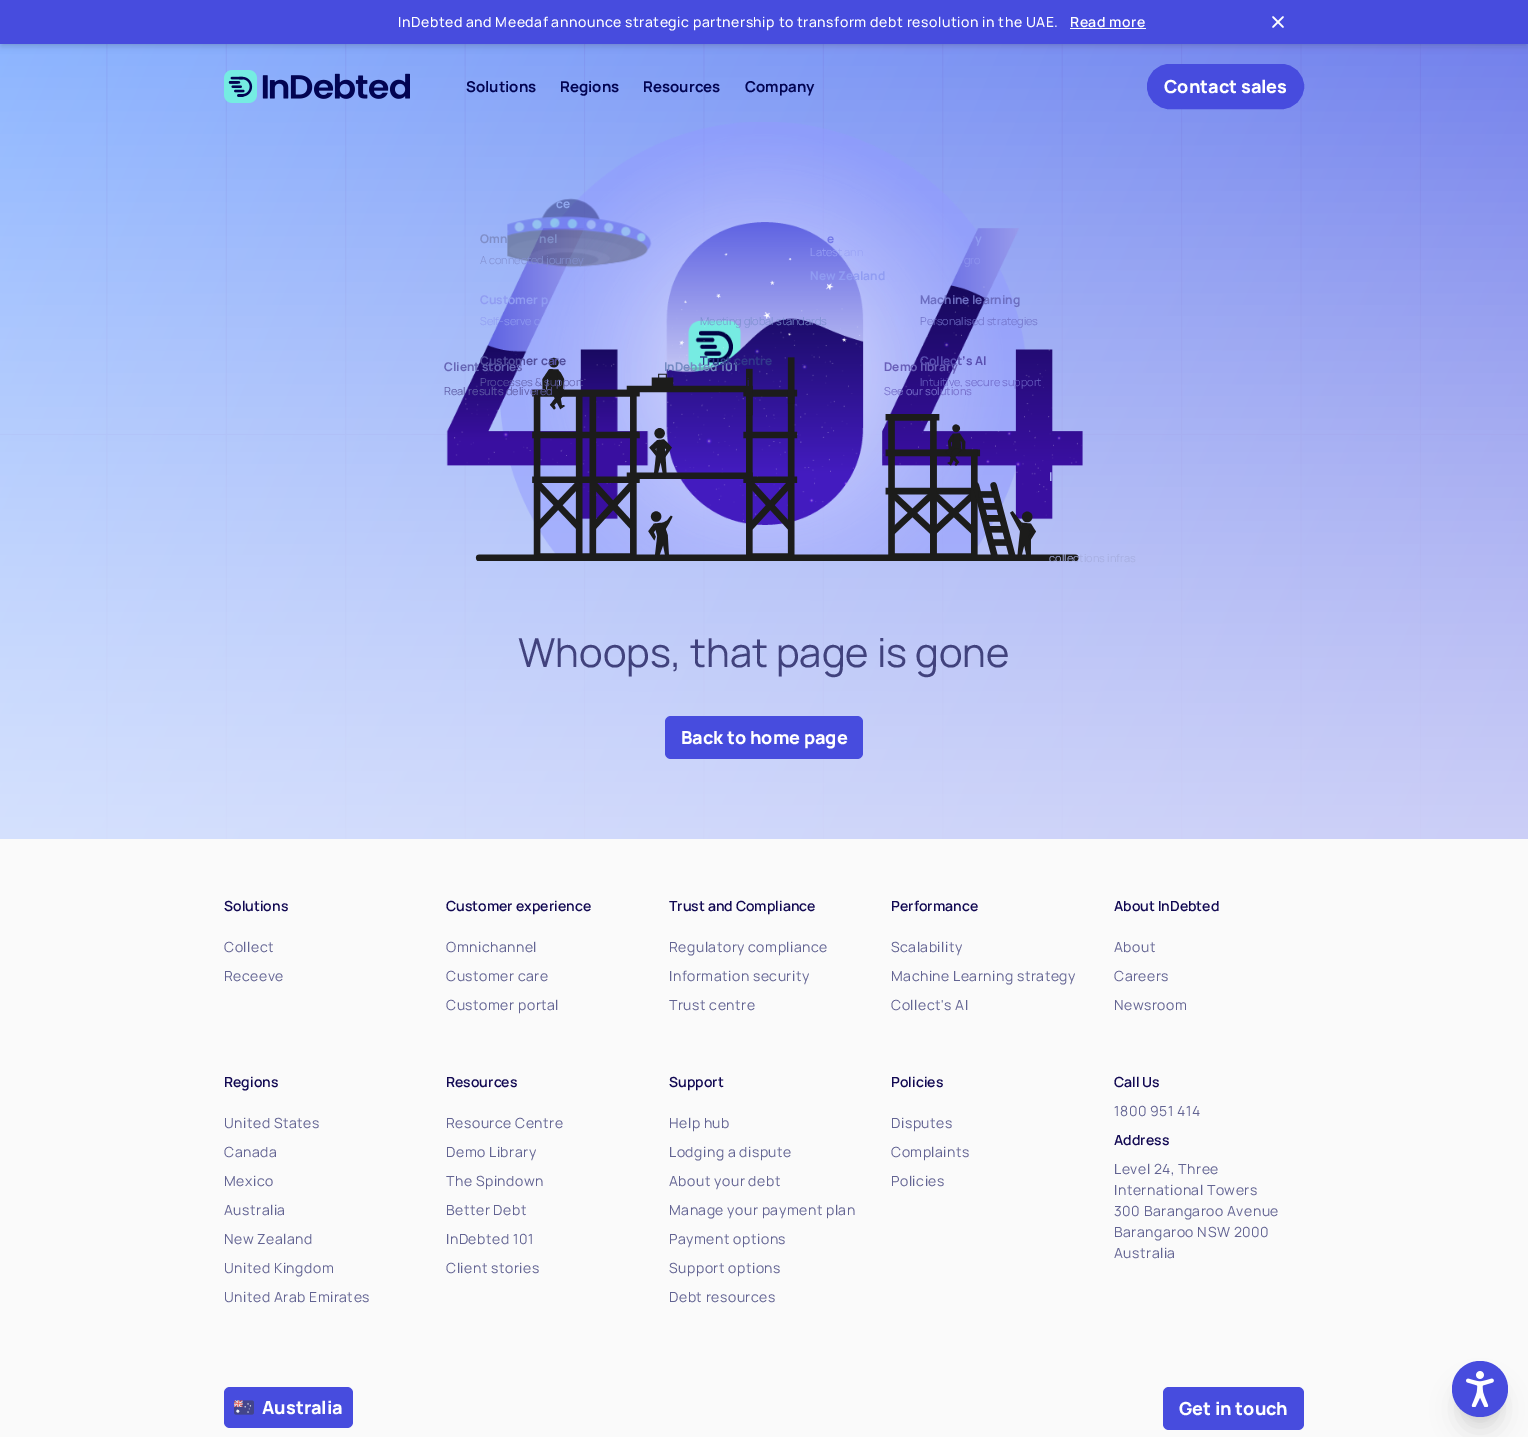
%!PS
<< /PageSize [1528 1437] /PageUsesTransparency true >> setpagedevice
/rgb { dup -16 bitshift 255 div exch dup -8 bitshift 255 and 255 div exch 255 and 255 div setrgbcolor } def
/font { [ exch dup neg 0 0 3 -1 roll 0 0 ] selectfont } def
/text { moveto show } def
/alpha { dup .setfillconstantalpha .setstrokeconstantalpha } def
/circle { newpath 0 360 arc closepath } def
/roundrect { 5 dict begin { /r /h /w /y /x } { exch def } forall
  x r add y moveto x w add y 2 copy h add r arct x w add y h add x 1 index r arct
  x y h add x y r arct x y 2 copy exch w add exch r arct closepath end } def
/shadow { 12 dict begin { /a /b /q /h /w /y /x } { exch def } forall gsave /was 0 def
  9 -2 -9 { dup b mul 4 div /e exch def 1 sub .425 mul 2.718 exch exp 1 add a .99 .min exch div /now exch def
    1 1 now sub 1 was sub div sub alpha /was now def
    w h .min e 2 mul add 0 gt { x e sub y e sub w e 2 mul add h e 2 mul add
      q e add b .6 mul add w h .min 2 div e add .min 0 .max roundrect fill } if } for grestore end } def
/picture { 5 dict begin { /h /w /y /x /name } { exch def } forall
  gsave x y translate w h scale
  w h 8 [w 0 0 h 0 0] name (r) file false 3 colorimage grestore end } def
0 .pushpdf14devicefilter
0 1437 translate 1 -1 scale
4 setmiterlimit
/s1 { /Manrope-Bold 15 font 16#020452 rgb } def
/s2 { /Manrope-Bold 12 font 16#6666B5 rgb } def
/s3 { /Manrope-Regular 11 font 16#605EA7 rgb } def
/s4 { /Manrope-Bold 12 font 16#738AC2 rgb } def
/s5 { /Manrope-Bold 12 font 16#695FB9 rgb } def
/s6 { /Manrope-Regular 11 font 16#766FCA rgb } def
/s7 { /Manrope-Bold 12 font 16#90A8EF rgb } def
/s8 { /Manrope-Bold 12 font 16#7F8EC8 rgb } def
/s9 { /Manrope-Light 11 font 16#828FD0 rgb } def
/s10 { /Manrope-Bold 12 font 16#909CF2 rgb } def
/s11 { /Manrope-Light 11 font 16#909CF2 rgb } def
/s12 { /Manrope-Bold 12 font 16#524F9D rgb } def
/s13 { /Manrope-Light 11 font 16#605EA7 rgb } def
/s14 { /Manrope-Bold 12 font 16#7479E8 rgb } def
/s15 { /Manrope-Light 11 font 16#7B8FCE rgb } def
/s16 { /Manrope-Bold 12 font 16#31398B rgb } def
/s17 { /Manrope-Light 11 font 16#2A147E rgb } def
/s18 { /Manrope-Light 11 font 16#8F96F1 rgb } def
/s19 { /Manrope-Bold 12 font 16#6C6EC1 rgb } def
/s20 { /Manrope-Light 11 font 16#7071C7 rgb } def
/s21 { /Manrope-Bold 12 font 16#594FB0 rgb } def
/s22 { /Manrope-Light 11 font 16#6B64C4 rgb } def
/s23 { /Manrope-Light 11 font 16#98A1F5 rgb } def
/s24 { /Manrope-Bold 12 font 16#ABB4F2 rgb } def
/s25 { /Manrope-Regular 11 font 16#A7AFE1 rgb } def
/s26 { /Manrope-ExtraBold 18 font 16#FFFFFF rgb } def
/s27 { /Manrope-Regular 40 font 16#41427D rgb } def
/s28 { /Manrope-SemiBold 14 font 16#110852 rgb } def
16#FFFFFF rgb
0 0 1528 1437 rectfill
(pic2.raw) 0 44 1528 795 picture
16#000000 rgb
2 4 1524 40 0 2 0.1 shadow
1 5 1526 42 0 3 0.1 shadow
16#474CDE rgb
0 0 1528 44 rectfill
/Manrope-Medium 14 font
16#FFFFFF rgb
398 27 moveto 0.5 0 (InDebted and Meedaf announce strategic partnership to transform debt resolution in the UAE.) ashow
/Manrope-SemiBold 14 font
1070 27 moveto 0.5 0 (Read more) ashow
1070 28 76 1 rectfill
1.7 setlinewidth
1 setlinecap
1 setlinejoin
1273 27 moveto 1283 17 lineto 1273 17 moveto 1283 27 lineto stroke
(pic1.raw) 224 70 186 33 picture
s1
(Resources) 643 92 text
(pic3.raw) 446 122 637 439 picture
s2
(Client stories) 444 371 text
s3
(Real results delivered) 444 395 text
s4
(InDebted 101) 664 371 text
s5
(Demo library) 884 371 text
s6
(See our solutions) 884 395 text
s1
(Solutions) 466 92 text
s7
(ce) 556 208 text
s8
(Omn) 480 243 text
(nel) 539 243 text
s9
(A connected journey) 480 264 text
s10
(Customer p) 480 304 text
s11
(Self-serve c) 480 325 text
s12
(Customer care) 480 365 text
s13
(Processes & support) 480 386 text
s14
(e) 827 243 text
s15
(Meeting global standards) 700 325 text
s16
(Trust centre) 700 365 text
s17
(i) 747 386 text
s10
(y) 975 243 text
s18
(gro) 964 264 text
s19
(Machine learning) 920 304 text
s20
(Personalised strategies) 920 325 text
s21
(Collect’s AI) 920 365 text
s22
(Intuitive, secure support) 920 386 text
s1
(Regions) 560 92 text
s10
(New Zealand) 810 280 text
s1
(Company) 745 92 text
s23
(Latest ann) 810 256 text
s24
(I) 1049 481 text
s25
(collections infras) 1049 562 text
16#474CDE rgb
1147.5 64.5 156 44 22 roundrect gsave fill grestore
1 setlinewidth
0 setlinecap
0 setlinejoin
stroke
s26
(Contact sales) 1164 93 text
s27
(Whoops, that page is gone) 518 667 text
16#474CDE rgb
665 716 198 43 6 roundrect fill
s26
(Back to home page) 681 744 text
16#FAFAFA rgb
0 839 1528 598 rectfill
s28
(Solutions) 224 911 text
/Manrope-Regular 14 font
16#626392 rgb
224 952 moveto 0.5 0 (Collect) ashow
224 981 moveto 0.5 0 (Receeve) ashow
s28
(Customer experience) 446 911 text
/Manrope-Regular 14 font
16#626392 rgb
446 952 moveto 0.5 0 (Omnichannel) ashow
446 981 moveto 0.5 0 (Customer care) ashow
446 1010 moveto 0.5 0 (Customer portal) ashow
s28
(Trust and Compliance) 669 911 text
/Manrope-Regular 14 font
16#626392 rgb
669 952 moveto 0.5 0 (Regulatory compliance) ashow
669 981 moveto 0.5 0 (Information security) ashow
669 1010 moveto 0.5 0 (Trust centre) ashow
s28
(Performance) 891 911 text
/Manrope-Regular 14 font
16#626392 rgb
891 952 moveto 0.5 0 (Scalability) ashow
891 981 moveto 0.5 0 (Machine Learning strategy) ashow
891 1010 moveto 0.5 0 (Collect's AI) ashow
s28
(About InDebted) 1114 911 text
/Manrope-Regular 14 font
16#626392 rgb
1114 952 moveto 0.5 0 (About) ashow
1114 981 moveto 0.5 0 (Careers) ashow
1114 1010 moveto 0.5 0 (Newsroom) ashow
s28
(Regions) 224 1087 text
/Manrope-Regular 14 font
16#626392 rgb
224 1128 moveto 0.5 0 (United States) ashow
224 1157 moveto 0.5 0 (Canada) ashow
224 1186 moveto 0.5 0 (Mexico) ashow
224 1215 moveto 0.5 0 (Australia) ashow
224 1244 moveto 0.5 0 (New Zealand) ashow
224 1273 moveto 0.5 0 (United Kingdom) ashow
224 1302 moveto 0.5 0 (United Arab Emirates) ashow
s28
(Resources) 446 1087 text
/Manrope-Regular 14 font
16#626392 rgb
446 1128 moveto 0.5 0 (Resource Centre) ashow
446 1157 moveto 0.5 0 (Demo Library) ashow
446 1186 moveto 0.5 0 (The Spindown) ashow
446 1215 moveto 0.5 0 (Better Debt) ashow
446 1244 moveto 0.5 0 (InDebted 101) ashow
446 1273 moveto 0.5 0 (Client stories) ashow
s28
(Support) 669 1087 text
/Manrope-Regular 14 font
16#626392 rgb
669 1128 moveto 0.5 0 (Help hub) ashow
669 1157 moveto 0.5 0 (Lodging a dispute) ashow
669 1186 moveto 0.5 0 (About your debt) ashow
669 1215 moveto 0.5 0 (Manage your payment plan) ashow
669 1244 moveto 0.5 0 (Payment options) ashow
669 1273 moveto 0.5 0 (Support options) ashow
669 1302 moveto 0.5 0 (Debt resources) ashow
s28
(Policies) 891 1087 text
/Manrope-Regular 14 font
16#626392 rgb
891 1128 moveto 0.5 0 (Disputes) ashow
891 1157 moveto 0.5 0 (Complaints) ashow
891 1186 moveto 0.5 0 (Policies) ashow
s28
(Call Us) 1114 1087 text
/Manrope-Regular 14 font
16#626392 rgb
1114 1116 moveto 0.5 0 (1800 951 414) ashow
s28
(Address) 1114 1145 text
/Manrope-Regular 14 font
16#626392 rgb
1114 1174 moveto 0.5 0 (Level 24, Three) ashow
1114 1195 moveto 0.5 0 (International Towers) ashow
1114 1216 moveto 0.5 0 (300 Barangaroo Avenue) ashow
1114 1237 moveto 0.5 0 (Barangaroo NSW 2000) ashow
1114 1258 moveto 0.5 0 (Australia) ashow
16#474CDE rgb
224 1387 129 41 6 roundrect fill
(pic4.raw) 234 1400 20 15 picture
s26
(Australia) 262 1414 text
16#474CDE rgb
1163 1387 141 43 6 roundrect fill
s26
(Get in touch) 1179 1415 text
16#000000 rgb
1458 1375 44 44 22 5 0.1 shadow
1457 1386 46 46 23 12.5 0.1 shadow
16#474CDE rgb
1480 1389 28 circle fill
(pic5.raw) 1466 1371 28 36 picture
.poppdf14devicefilter showpage
